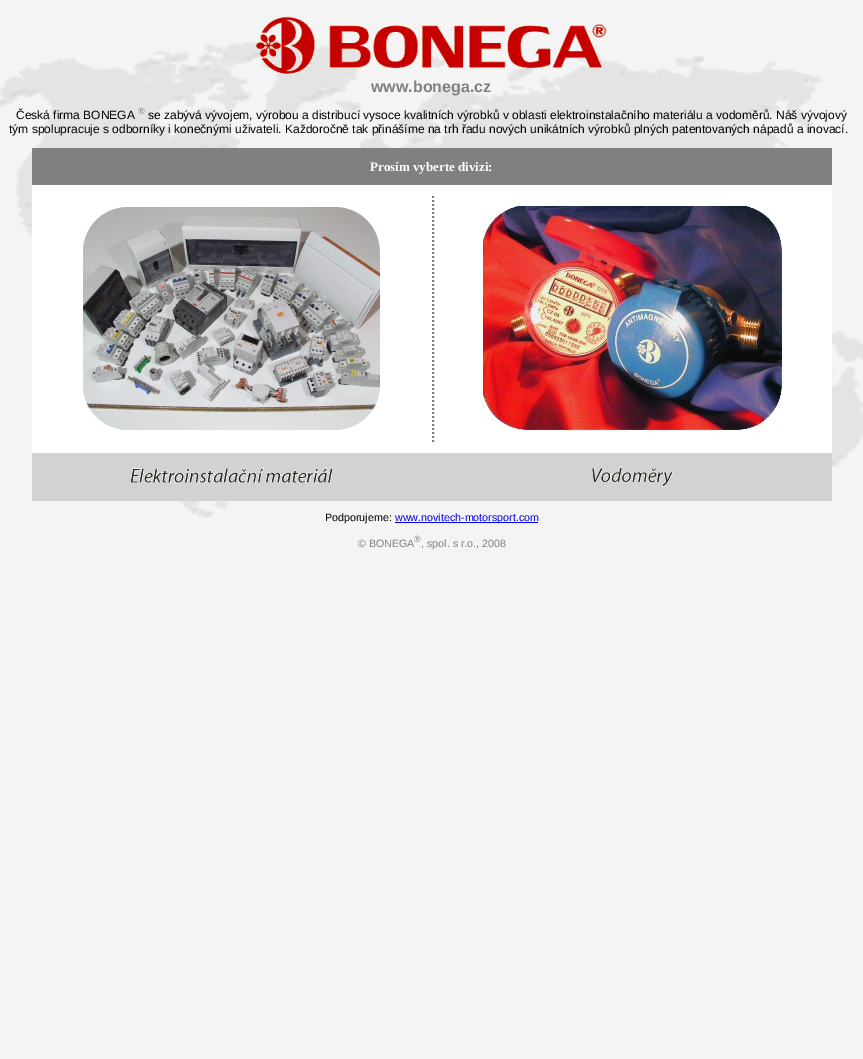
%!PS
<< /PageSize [863 1059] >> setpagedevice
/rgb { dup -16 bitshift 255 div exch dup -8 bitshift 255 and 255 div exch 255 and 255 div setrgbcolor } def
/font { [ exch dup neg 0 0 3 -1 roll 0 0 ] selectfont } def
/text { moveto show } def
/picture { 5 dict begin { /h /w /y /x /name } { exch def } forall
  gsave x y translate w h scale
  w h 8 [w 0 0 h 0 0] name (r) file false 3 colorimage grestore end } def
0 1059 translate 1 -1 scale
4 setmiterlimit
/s1 { /LiberationSans-Bold 16 font 16#808080 rgb } def
/s2 { /LiberationSans-Regular 12 font 16#000000 rgb } def
/s3 { /LiberationSans-Regular 9 font 16#808080 rgb } def
/s4 { /LiberationSerif-Bold 13 font 16#FFFFFF rgb } def
/s5 { /LiberationSans-Regular 10.7 font 16#000000 rgb } def
/s6 { /LiberationSans-Regular 10.7 font 16#0000EE rgb } def
/s7 { /LiberationSans-Regular 10.7 font 16#808080 rgb } def
16#F4F4F4 rgb
0 0 863 1059 rectfill
(pic1.raw) 0 41 863 477 picture
(pic2.raw) 256 16 351 58 picture
s1
(www.bonega.cz) 371 92 text
s2
(Česká firma BONEGA) 16 119 text
s3
(®) 138 114 text
s2
(se zabývá vývojem, výrobou a distribucí vysoce kvalitních výrobků v oblasti elektroinstalačního materiálu a vodoměrů. Náš vývojový) 148 119 text
(tým spolupracuje s odborníky i konečnými uživateli. Každoročně tak přinášíme na trh řadu nových unikátních výrobků plných patentovaných nápadů a inovací.) 9 133 text
16#FFFFFF rgb
32 185 800 268 rectfill
16#808080 rgb
32 148 800 37 rectfill
s4
(Prosím vyberte divizi:) 370 171 text
(pic3.raw) 82 207 300 223 picture
16#808080 rgb
2 setlinewidth
[2 2] 0 setdash
433 196 moveto 433 443 lineto stroke
(pic4.raw) 483 206 300 225 picture
16#D2D2D2 rgb
32 453 800 48 rectfill
(pic5.raw) 130 468 203 15 picture
(pic6.raw) 592 467 81 20 picture
s5
(Podporujeme:) 325 521 text
16#0000EE rgb
395 522 143 1 rectfill
(www.novitech-motorsport.com) 395 521 text
s7
(© BONEGA) 358 547 text
s3
(®) 414 542 text
s7
(, spol. s r.o., 2008) 421 547 text
showpage
